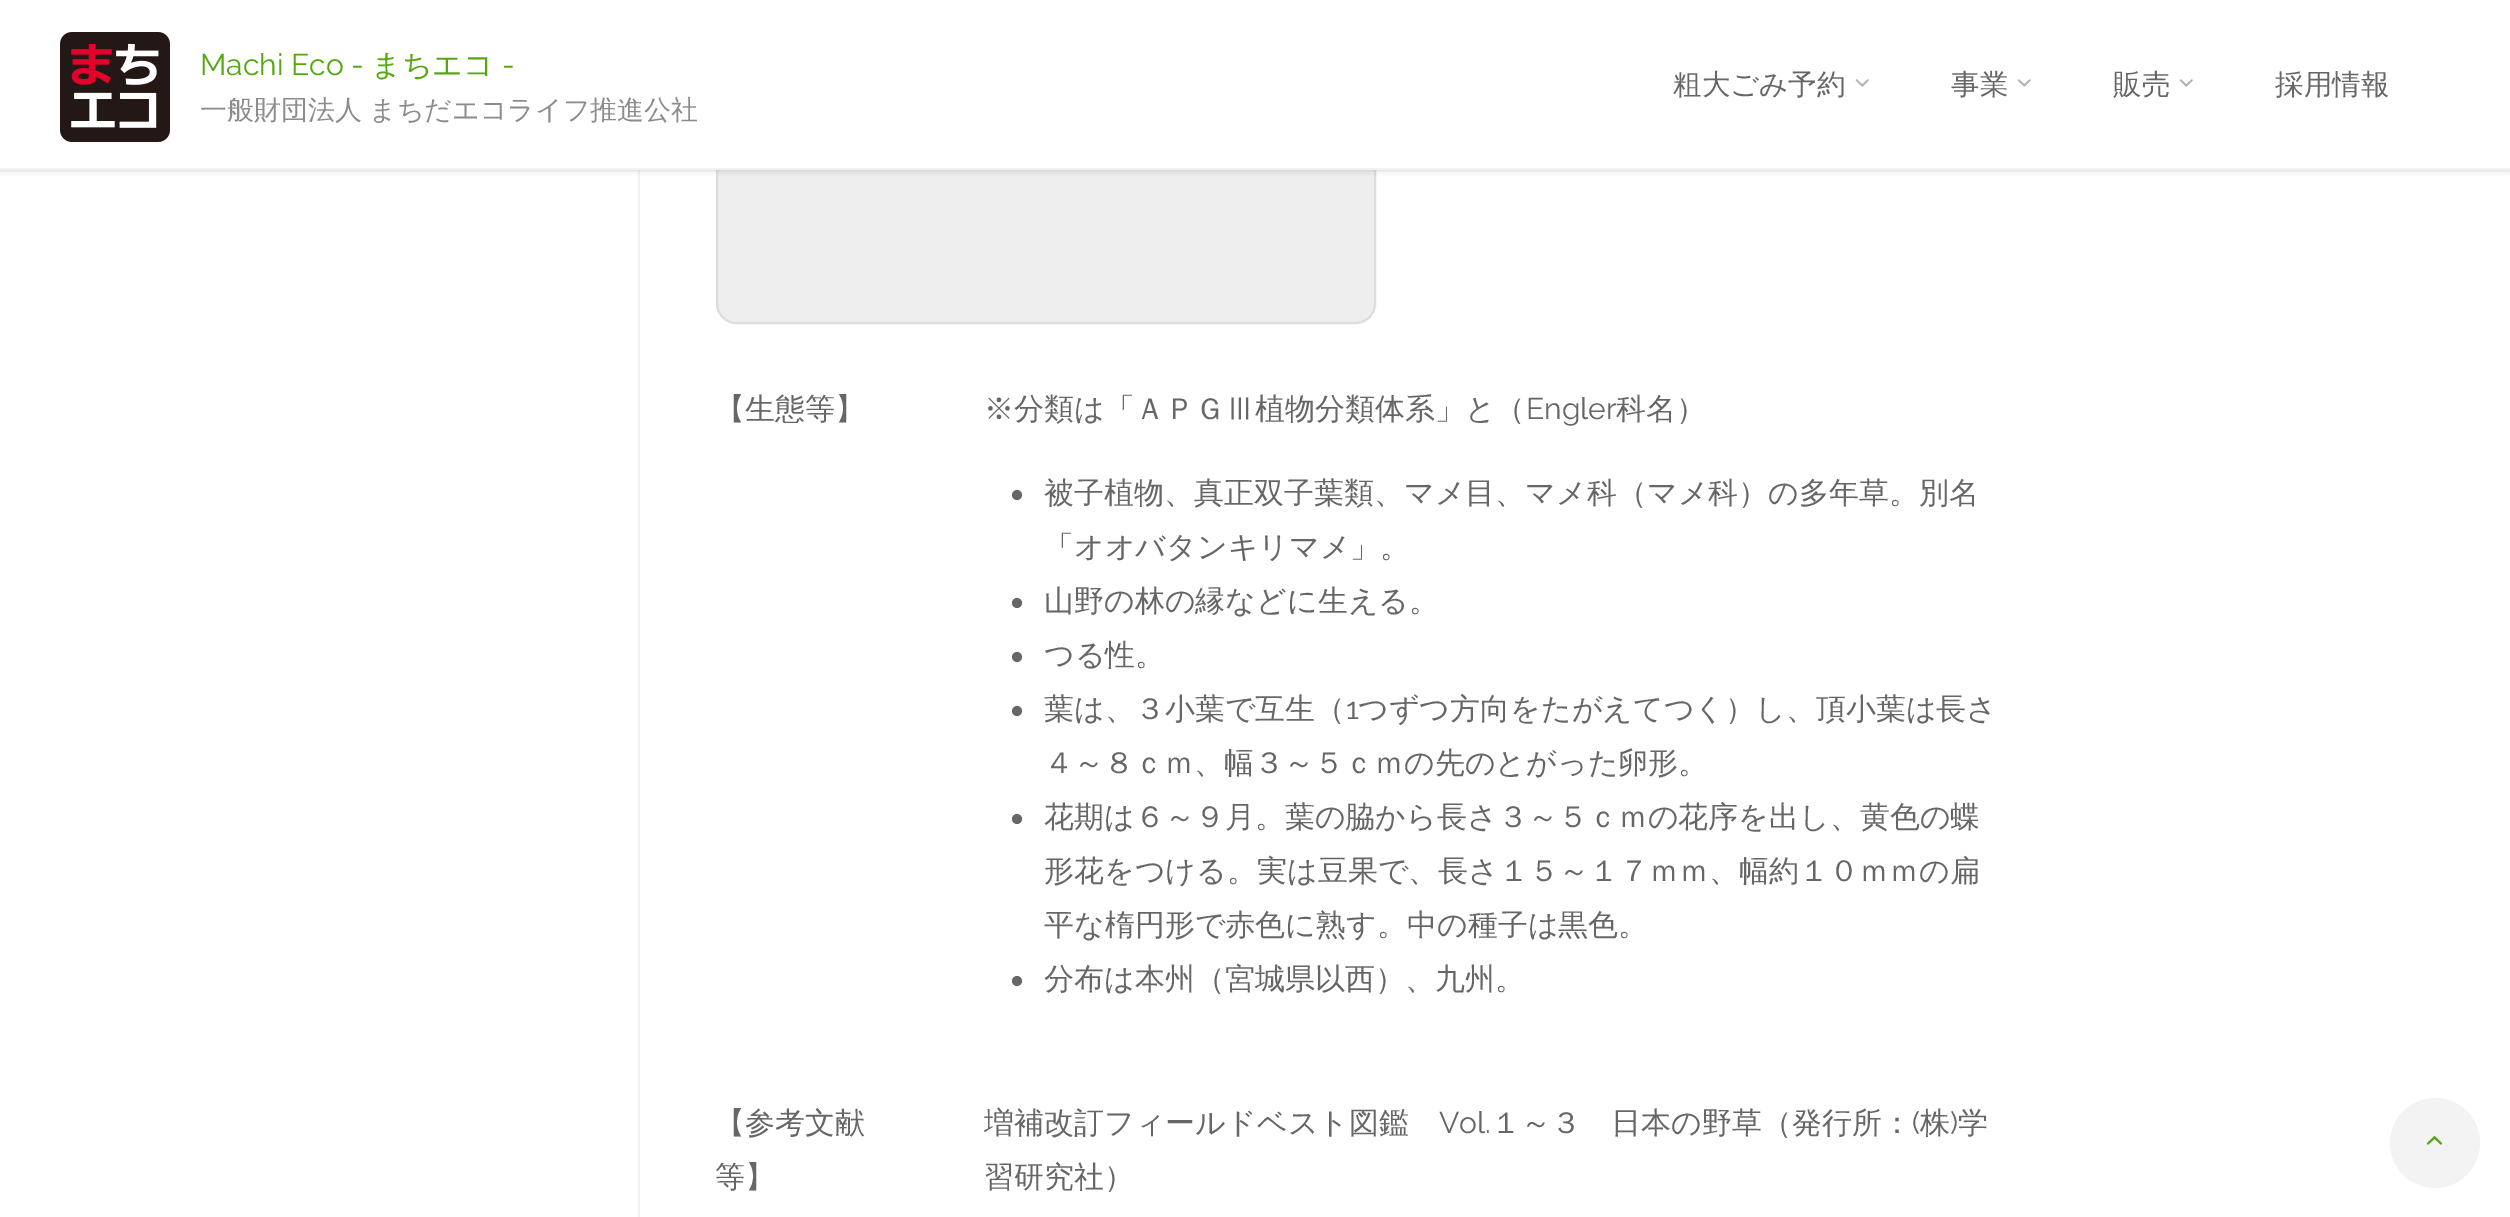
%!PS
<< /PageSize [2510 1217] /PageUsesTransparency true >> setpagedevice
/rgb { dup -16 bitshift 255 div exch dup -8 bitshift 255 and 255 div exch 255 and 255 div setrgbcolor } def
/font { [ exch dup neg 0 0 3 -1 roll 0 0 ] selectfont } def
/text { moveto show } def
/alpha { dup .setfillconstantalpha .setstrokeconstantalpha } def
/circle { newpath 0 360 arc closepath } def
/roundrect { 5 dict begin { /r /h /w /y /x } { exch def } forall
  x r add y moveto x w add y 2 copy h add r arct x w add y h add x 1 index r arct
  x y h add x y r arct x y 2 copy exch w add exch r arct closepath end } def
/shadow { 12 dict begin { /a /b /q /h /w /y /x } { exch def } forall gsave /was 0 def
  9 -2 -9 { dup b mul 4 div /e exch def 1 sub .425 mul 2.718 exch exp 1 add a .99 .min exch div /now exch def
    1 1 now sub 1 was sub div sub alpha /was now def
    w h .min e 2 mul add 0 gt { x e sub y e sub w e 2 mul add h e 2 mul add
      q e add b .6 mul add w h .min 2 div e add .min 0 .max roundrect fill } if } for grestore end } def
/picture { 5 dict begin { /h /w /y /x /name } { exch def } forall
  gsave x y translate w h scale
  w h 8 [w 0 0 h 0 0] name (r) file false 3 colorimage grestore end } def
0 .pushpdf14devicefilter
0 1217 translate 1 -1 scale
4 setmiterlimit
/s1 { /Raleway-Regular 30 font 16#54A80F rgb } def
/s2 { /WenQuanYiZenHei-Medium 30 font 16#54A80F rgb } def
/s3 { /WenQuanYiZenHei-Medium 28.5 font 16#666666 rgb } def
/s4 { /WenQuanYiZenHei-Medium 30 font 16#666666 rgb } def
/s5 { /Raleway-Regular 30 font 16#666666 rgb } def
16#FFFFFF rgb
0 0 2510 1217 rectfill
16#F2F2F2 rgb
638 170 2 1047 rectfill
16#EEEEEE rgb
717 -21 658 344 19 roundrect gsave fill grestore
16#DDDDDD rgb
2 setlinewidth
stroke
16#000000 rgb
0 0 2510 170 0 3 0.2 shadow
16#FFFFFF rgb
0 0 2510 168 rectfill
16#F2F2F2 rgb
0 168 2510 2 rectfill
(pic1.raw) 60 32 110 110 picture
s1
(Machi Eco -) 200 75 text
s2
(まちエコ) 371 75 text
s1
(-) 502 75 text
/WenQuanYiZenHei-Medium 27 font
16#8C8C8C rgb
200 119 moveto -1 0 32 (一般財団法人 まちだエコライフ推進公社) widthshow
s3
(粗大ごみ予約) 1673 94 text
(pic2.raw) 1855 79 14 8 picture
(事業) 1951 94 text
(pic2.raw) 2017 79 14 8 picture
(販売) 2113 94 text
(pic2.raw) 2179 79 14 8 picture
(採用情報) 2275 94 text
s4
(【生態等】) 715 419 text
(※分類は「ＡＰＧⅢ植物分類体系」と（) 984 419 text
s5
(Engler) 1526 419 text
s4
(科名）) 1616 419 text
1017 495 5 circle fill
(被子植物、真正双子葉類、マメ目、マメ科（マメ科）の多年草。別名) 1044 503 text
(「オオバタンキリマメ」。) 1044 557 text
1017 603 5 circle fill
(山野の林の縁などに生える。) 1044 611 text
1017 657 5 circle fill
(つる性。) 1044 665 text
1017 711 5 circle fill
(葉は、３小葉で互生（) 1044 719 text
s5
(1) 1346 719 text
s4
(つずつ方向をたがえてつく）し、頂小葉は長さ) 1358 719 text
(４～８ｃｍ、幅３～５ｃｍの先のとがった卵形。) 1044 773 text
1017 819 5 circle fill
(花期は６～９月。葉の脇から長さ３～５ｃｍの花序を出し、黄色の蝶) 1044 827 text
(形花をつける。実は豆果で、長さ１５～１７ｍｍ、幅約１０ｍｍの扁) 1044 881 text
(平な楕円形で赤色に熟す。中の種子は黒色。) 1044 935 text
1017 981 5 circle fill
(分布は本州（宮城県以西）、九州。) 1044 989 text
(【参考文献) 715 1133 text
(等】) 715 1187 text
(増補改訂フィールドベスト図鑑) 984 1133 text
s5
(Vol.) 1439 1133 text
s4
(１～３　日本の野草（発行所：) 1491 1133 text
s5
(\() 1912 1133 text
s4
(株) 1920 1133 text
s5
(\)) 1950 1133 text
s4
(学) 1958 1133 text
(習研究社）) 984 1187 text
16#F3F3F3 rgb
2435 1143 45 circle fill
(pic3.raw) 2426 1136 17 9 picture
.poppdf14devicefilter showpage
